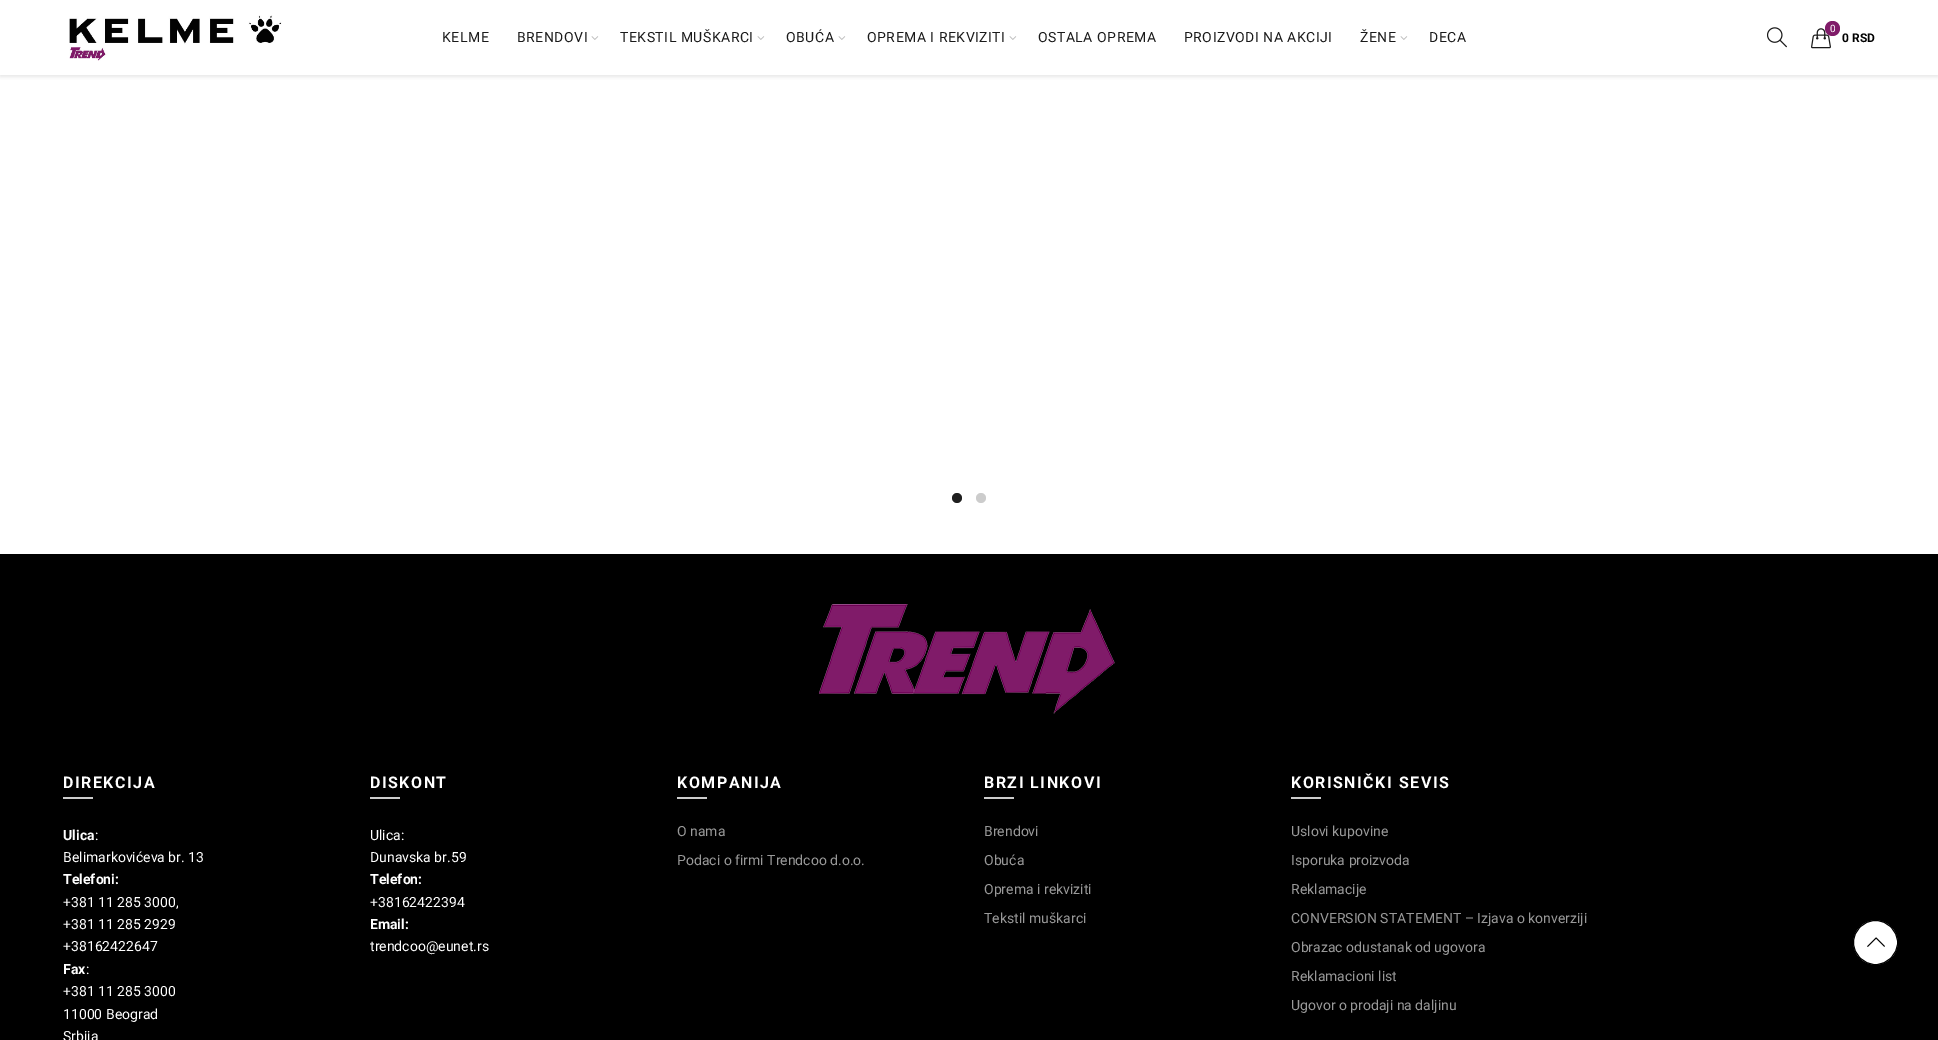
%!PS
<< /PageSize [1938 1040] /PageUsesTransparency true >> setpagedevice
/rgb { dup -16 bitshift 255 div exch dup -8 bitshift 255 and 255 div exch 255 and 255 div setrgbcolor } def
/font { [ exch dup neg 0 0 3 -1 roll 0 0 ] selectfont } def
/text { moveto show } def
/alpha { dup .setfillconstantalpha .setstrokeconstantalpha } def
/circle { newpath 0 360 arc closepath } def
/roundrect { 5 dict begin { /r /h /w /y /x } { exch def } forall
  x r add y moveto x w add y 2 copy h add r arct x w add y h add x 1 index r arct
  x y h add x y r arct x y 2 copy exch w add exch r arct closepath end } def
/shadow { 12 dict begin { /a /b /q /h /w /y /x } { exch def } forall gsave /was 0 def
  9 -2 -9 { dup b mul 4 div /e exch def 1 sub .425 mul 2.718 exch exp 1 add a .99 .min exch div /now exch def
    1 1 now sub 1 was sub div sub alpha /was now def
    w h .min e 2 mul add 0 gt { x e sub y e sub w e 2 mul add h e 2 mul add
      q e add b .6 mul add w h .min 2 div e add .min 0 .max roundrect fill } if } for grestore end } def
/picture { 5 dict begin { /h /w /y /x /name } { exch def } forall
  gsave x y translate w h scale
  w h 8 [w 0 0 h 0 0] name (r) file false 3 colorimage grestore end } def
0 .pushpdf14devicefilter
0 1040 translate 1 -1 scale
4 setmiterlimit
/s1 { /Roboto-Regular 10 font 16#FFFFFF rgb } def
/s2 { /Roboto-Bold 12 font 16#000000 rgb } def
/s3 { /Roboto-Bold 14 font 16#FFFFFF rgb } def
/s4 { /Roboto-Regular 14 font 16#FFFFFF rgb } def
/s5 { /Roboto-Regular 14 font 16#999999 rgb } def
16#FFFFFF rgb
0 0 1938 1040 rectfill
gsave
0 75 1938 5 rectclip
16#BEBEBE rgb
0 1 1938 75 0 2.5 0.5 shadow
grestore
(pic1.raw) 69 15 213 46 picture
/Roboto-Regular 14 font
16#1A1A1A rgb
442 42 moveto 0.5 0 (KELME) ashow
517 42 moveto 0.5 0 (BRENDOVI) ashow
(pic2.raw) 591 36 8 4 picture
620 42 moveto 0.5 0 (TEKSTIL MUŠKARCI) ashow
(pic2.raw) 757 36 8 4 picture
786 42 moveto 0.5 0 (OBUĆA) ashow
(pic2.raw) 838 36 8 4 picture
867 42 moveto 0.5 0 (OPREMA I REKVIZITI) ashow
(pic2.raw) 1009 36 8 4 picture
1038 42 moveto 0.5 0 (OSTALA OPREMA) ashow
1184 42 moveto 0.5 0 (PROIZVODI NA AKCIJI) ashow
1360 42 moveto 0.5 0 (ŽENE) ashow
(pic2.raw) 1400 36 8 4 picture
1429 42 moveto 0.5 0 (DECA) ashow
(pic3.raw) 1767 27 20 21 picture
(pic4.raw) 1811 28 20 21 picture
16#801B69 rgb
1832.5 28.5 7.5 circle fill
s1
(0) 1830 32 text
s2
(0 RSD) 1842 42 text
16#1F1F1F rgb
957 498 5 circle fill
16#CCCCCC rgb
981 498 5 circle fill
16#000000 rgb
0 554 1938 486 rectfill
(pic5.raw) 819 604 296 110 picture
/Roboto-Bold 16 font
16#FFFFFF rgb
63 788 moveto 1.5 0 (DIREKCIJA) ashow
16#CCCCCC rgb
63 797 30 2 rectfill
s3
(Ulica) 63 840 text
s4
(:) 95 840 text
(Belimarkovićeva br. 13) 63 862 text
s3
(Telefoni:) 63 884 text
s4
(+381 11 285 3000,) 63 907 text
(+381 11 285 2929) 63 929 text
(+38162422647) 63 951 text
s3
(Fax) 63 974 text
s4
(:) 86 974 text
(+381 11 285 3000) 63 996 text
(11000 Beograd) 63 1019 text
(Srbija) 63 1041 text
/Roboto-Bold 16 font
370 788 moveto 1.5 0 (DISKONT) ashow
16#CCCCCC rgb
370 797 30 2 rectfill
s4
(Ulica:) 370 840 text
(Dunavska br.59) 370 862 text
s3
(Telefon:) 370 884 text
s4
(+38162422394) 370 907 text
s3
(Email:) 370 929 text
s4
(trendcoo@eunet.rs) 370 951 text
/Roboto-Bold 16 font
677 788 moveto 1.5 0 (KOMPANIJA) ashow
16#CCCCCC rgb
677 797 30 2 rectfill
s5
(O nama) 677 836 text
(Podaci o firmi Trendcoo d.o.o.) 677 865 text
/Roboto-Bold 16 font
16#FFFFFF rgb
984 788 moveto 1.5 0 (BRZI LINKOVI) ashow
16#CCCCCC rgb
984 797 30 2 rectfill
s5
(Brendovi) 984 836 text
(Obuća) 984 865 text
(Oprema i rekviziti) 984 894 text
(Tekstil muškarci) 984 923 text
/Roboto-Bold 16 font
16#FFFFFF rgb
1291 788 moveto 1.5 0 (KORISNIČKI SEVIS) ashow
16#CCCCCC rgb
1291 797 30 2 rectfill
s5
(Uslovi kupovine) 1291 836 text
(Isporuka proizvoda) 1291 865 text
(Reklamacije) 1291 894 text
(CONVERSION STATEMENT – Izjava o konverziji) 1291 923 text
(Obrazac odustanak od ugovora) 1291 952 text
(Reklamacioni list) 1291 981 text
(Ugovor o prodaji na daljinu) 1291 1010 text
16#FFFFFF rgb
1875.5 942.5 22 circle gsave fill grestore
16#000000 rgb
stroke
(pic6.raw) 1867 937 18 10 picture
.poppdf14devicefilter showpage
